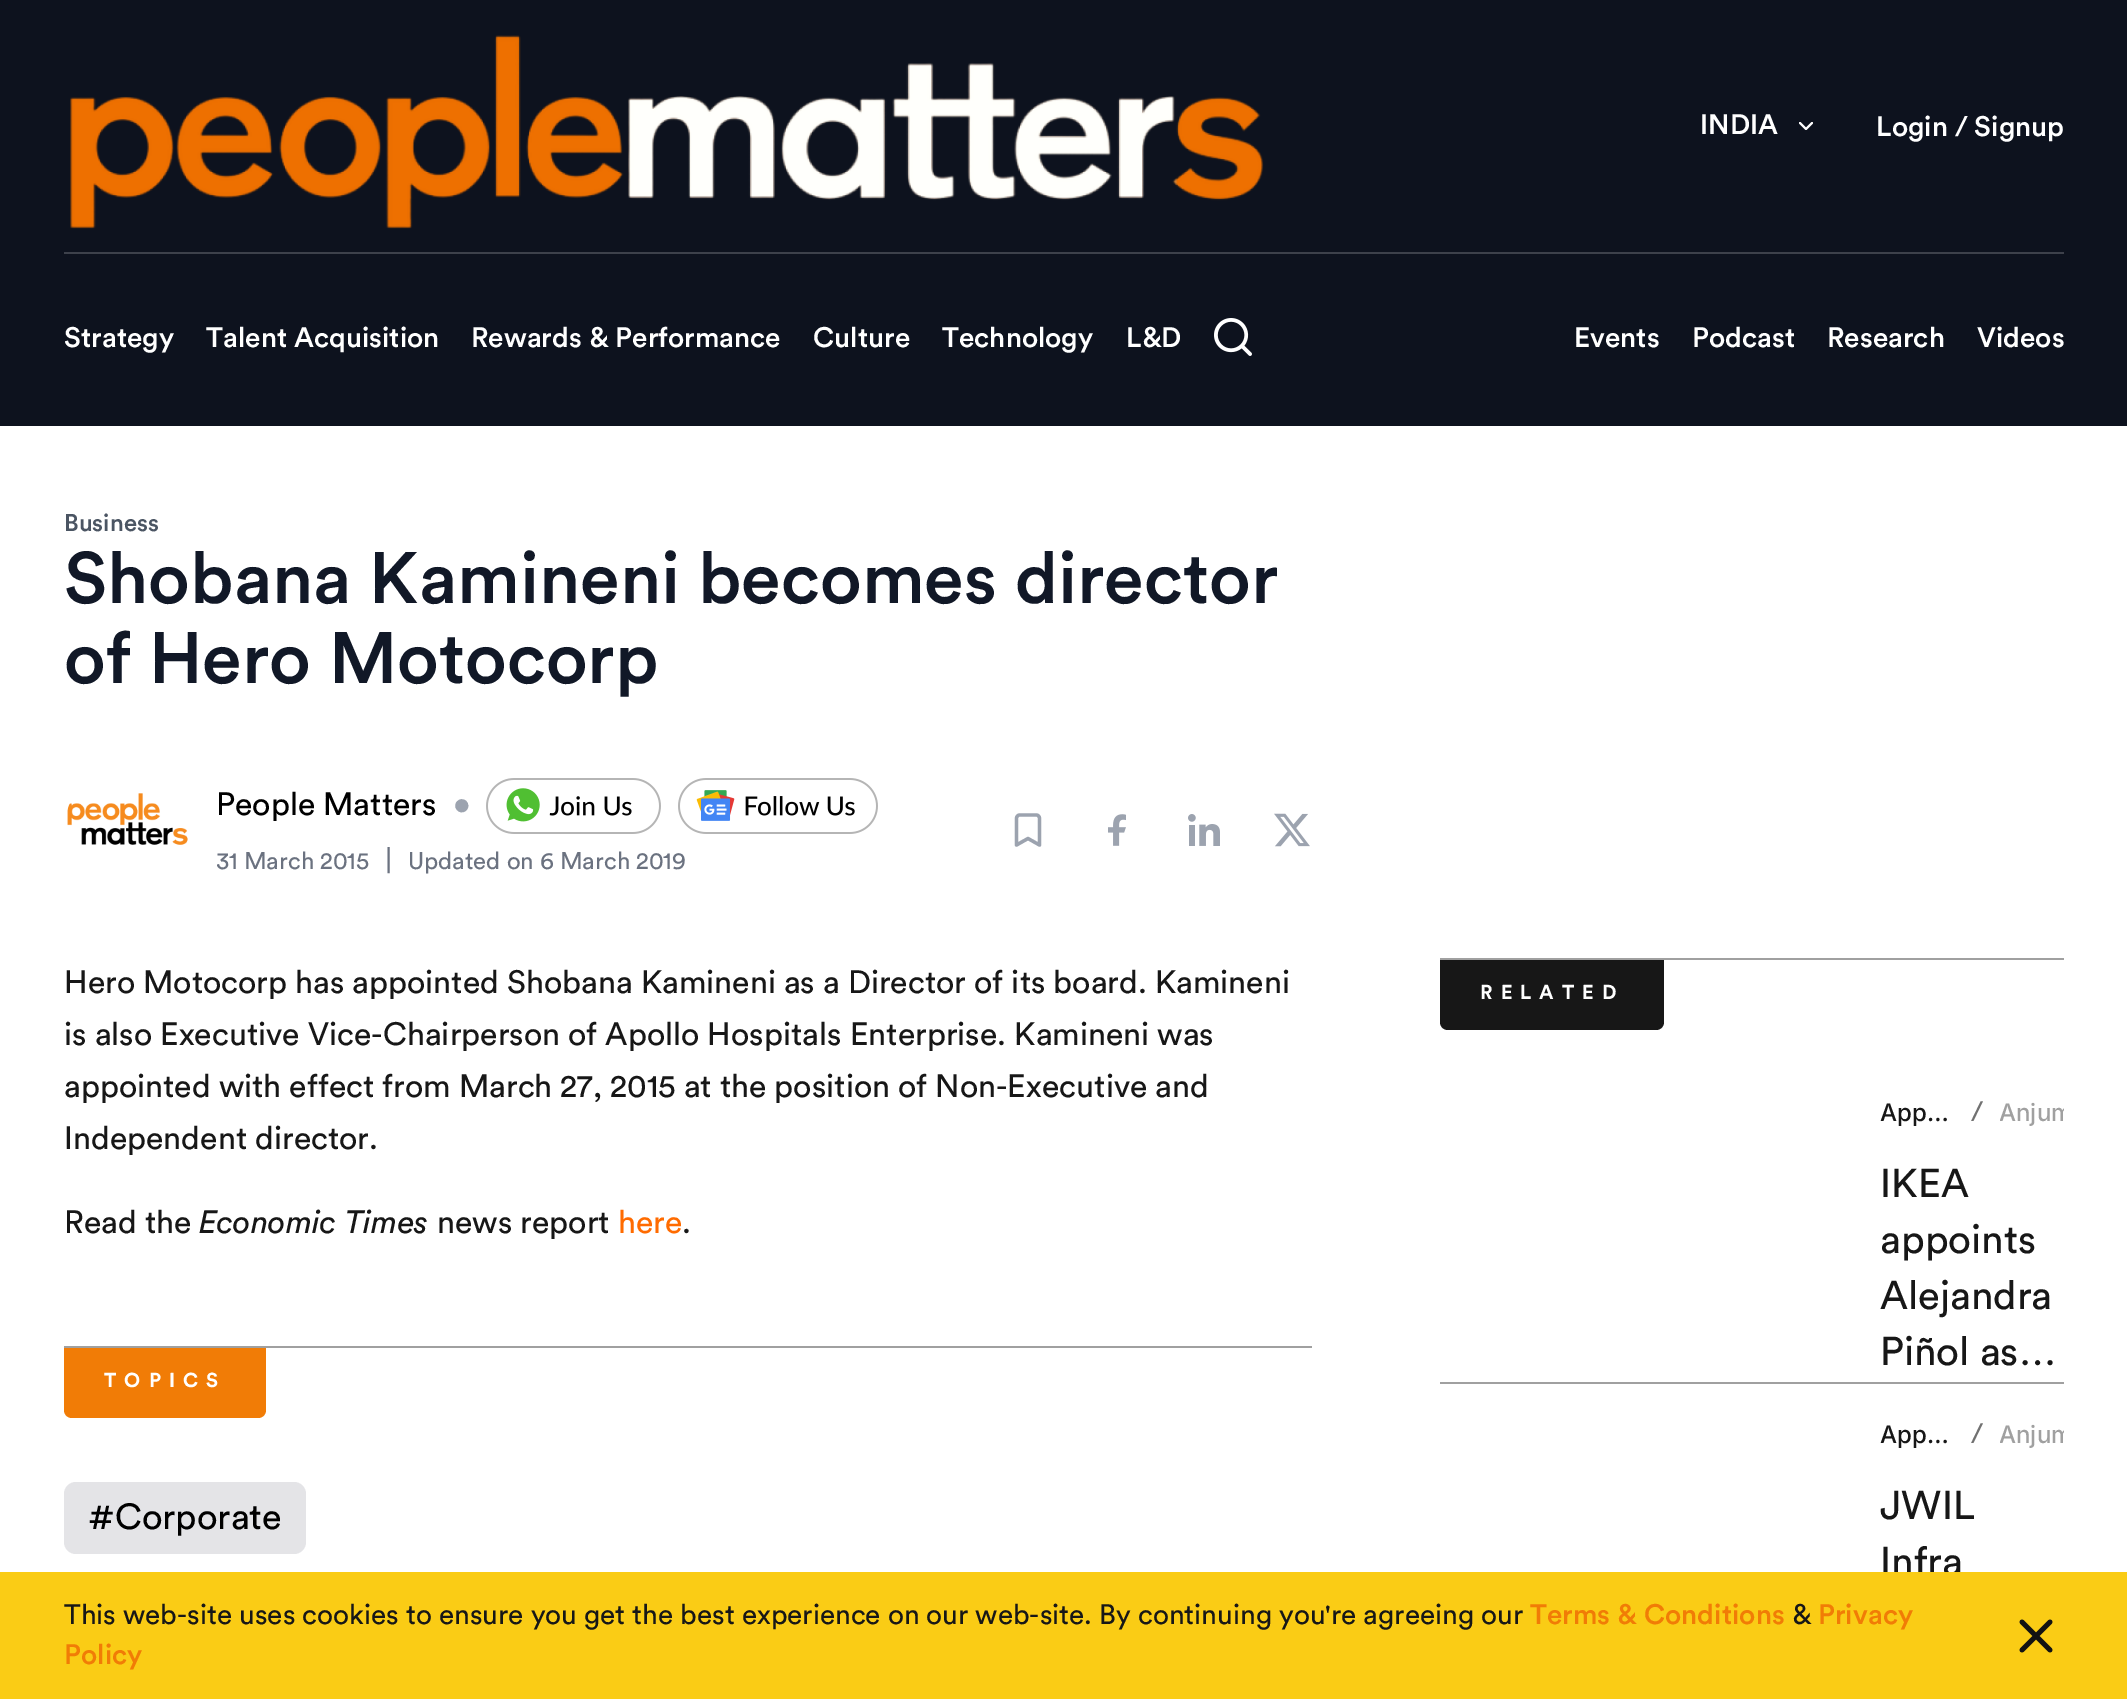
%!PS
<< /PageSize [2127 1699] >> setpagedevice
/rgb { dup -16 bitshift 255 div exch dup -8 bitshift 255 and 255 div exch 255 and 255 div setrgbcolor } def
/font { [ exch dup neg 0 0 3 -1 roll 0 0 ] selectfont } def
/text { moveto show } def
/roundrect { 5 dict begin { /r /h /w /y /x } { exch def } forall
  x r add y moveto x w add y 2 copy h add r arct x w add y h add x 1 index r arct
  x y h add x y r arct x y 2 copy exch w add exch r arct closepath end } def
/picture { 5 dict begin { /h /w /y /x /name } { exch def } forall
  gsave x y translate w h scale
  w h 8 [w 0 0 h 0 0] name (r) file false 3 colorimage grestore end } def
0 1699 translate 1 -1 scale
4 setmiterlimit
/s1 { /Circular-Medium 28 font 16#FFFFFF rgb } def
/s2 { /Circular-Medium 24 font 16#4B5563 rgb } def
/s3 { /Circular-Medium 72 font 16#111827 rgb } def
/s4 { /Circular-Regular 32 font 16#000000 rgb } def
/s5 { /Circular-Regular 32 font 16#9CA3AF rgb } def
/s6 { /Circular-Regular 24 font 16#6B7280 rgb } def
/s7 { /Circular-Regular 28 font 16#6B7280 rgb } def
/s8 { /Circular-Regular 32 font 16#171717 rgb } def
/s9 { /Circular-Italic 32 font 16#171717 rgb } def
/s10 { /Circular-Regular 32 font 16#FF6B00 rgb } def
/s11 { /Circular-Regular 36 font 16#000000 rgb } def
/s12 { /Inter-Medium 24 font 16#171717 rgb } def
/s13 { /Circular-Regular 28 font 16#717171 rgb } def
/s14 { /Inter-Medium 24 font 16#A0A0A0 rgb } def
/s15 { /Circular-Regular 40 font 16#171717 rgb } def
/s16 { /Circular-Regular 28 font 16#171717 rgb } def
/s17 { /Circular-Medium 28 font 16#F17C06 rgb } def
16#FFFFFF rgb
0 0 2127 1699 rectfill
16#0D121E rgb
0 0 2127 426 rectfill
(pic1.raw) 70 35 1194 194 picture
s1
(INDIA) 1700 134 text
2 setlinewidth
1 setlinecap
1 setlinejoin
1800 123 moveto 1806 129 lineto 1812 123 lineto stroke
(Login / Signup) 1876 136 text
16#3D414B rgb
64 252 2000 2 rectfill
s1
(Strategy) 64 347 text
(Talent Acquisition) 206 347 text
(Rewards & Performance) 471 347 text
(Culture) 813 347 text
(Technology) 942 347 text
(L&D) 1126 347 text
(pic2.raw) 1214 318 38 38 picture
(Events) 1574 347 text
(Podcast) 1692 347 text
(Research) 1827 347 text
(Videos) 1977 347 text
s2
(Business) 64 531 text
s3
(Shobana Kamineni becomes director) 64 603 text
(of Hero Motocorp) 64 683 text
(pic3.raw) 67 793 121 52 picture
s4
(People Matters) 216 815 text
s5
(•) 453 815 text
(pic4.raw) 486 778 175 56 picture
(pic5.raw) 678 778 200 56 picture
s6
(31 March 2015) 216 869 text
s7
(|) 385 869 text
s6
(Updated on 6 March 2019) 408 869 text
16#9CA3AF rgb
3.3 setlinewidth
1039.5 845 moveto 1028 838.5 lineto 1016.5 845 lineto 1016.5 818.5 lineto 1016.5 816.5 1018 815 1019.5 815 curveto 1036.5 815 lineto 1038 815 1039.5 816.5 1039.5 818.5 curveto closepath stroke
(pic6.raw) 1108 814 18 32 picture
(pic7.raw) 1188 814 32 32 picture
(pic8.raw) 1274 813 36 34 picture
s8
(Hero Motocorp has appointed Shobana Kamineni as a Director of its board. Kamineni) 64 993 text
(is also Executive Vice-Chairperson of Apollo Hospitals Enterprise. Kamineni was) 64 1045 text
(appointed with effect from March 27, 2015 at the position of Non-Executive and) 64 1097 text
(Independent director.) 64 1149 text
(Read the) 64 1233 text
s9
(Economic Times) 199 1233 text
s8
(news report) 437 1233 text
s10
(here) 618 1233 text
s8
(.) 682 1233 text
16#A0A0A0 rgb
64 1346 1248 2 rectfill
16#F17C06 rgb
64 1348 moveto 266 1348 lineto 266 1410 lineto 266 1414.5 262.5 1418 258 1418 curveto 72 1418 lineto 67.5 1418 64 1414.5 64 1410 curveto closepath fill
/Circular-Bold 20 font
16#FFFFFF rgb
104 1387 moveto 8 0 (TOPICS) ashow
16#E4E4E7 rgb
64 1482 242 72 12 roundrect fill
s11
(#Corporate) 88 1529 text
16#A0A0A0 rgb
1440 958 624 2 rectfill
16#171717 rgb
1440 960 moveto 1664 960 lineto 1664 1022 lineto 1664 1026.5 1660.5 1030 1656 1030 curveto 1448 1030 lineto 1443.5 1030 1440 1026.5 1440 1022 curveto closepath fill
/Circular-Bold 20 font
16#FFFFFF rgb
1480 999 moveto 8 0 (RELATED) ashow
16#A0A0A0 rgb
1440 1382 624 2 rectfill
s12
(App…) 1880 1121 text
s13
(/) 1971 1121 text
gsave
2000 1098 64 32 rectclip
s14
(Anjum) 1999 1121 text
grestore
s15
(IKEA) 1880 1197 text
(appoints) 1880 1253 text
(Alejandra) 1880 1309 text
(Piñol as…) 1880 1365 text
s12
(App…) 1880 1443 text
s13
(/) 1971 1443 text
gsave
2000 1420 64 32 rectclip
s14
(Anjum) 1999 1443 text
grestore
s15
(JWIL) 1880 1519 text
(Infra) 1880 1575 text
16#FACC15 rgb
0 1572 2127 127 rectfill
s16
(This web-site uses cookies to ensure you get the best experience on our web-site. By continuing you're agreeing our) 64 1624 text
s17
(Terms & Conditions) 1530 1624 text
s16
(&) 1792 1624 text
s17
(Privacy) 1818 1624 text
(Policy) 64 1664 text
16#121212 rgb
4.7 setlinewidth
2050 1622 moveto 2022 1650 lineto 2022 1622 moveto 2050 1650 lineto stroke
showpage
